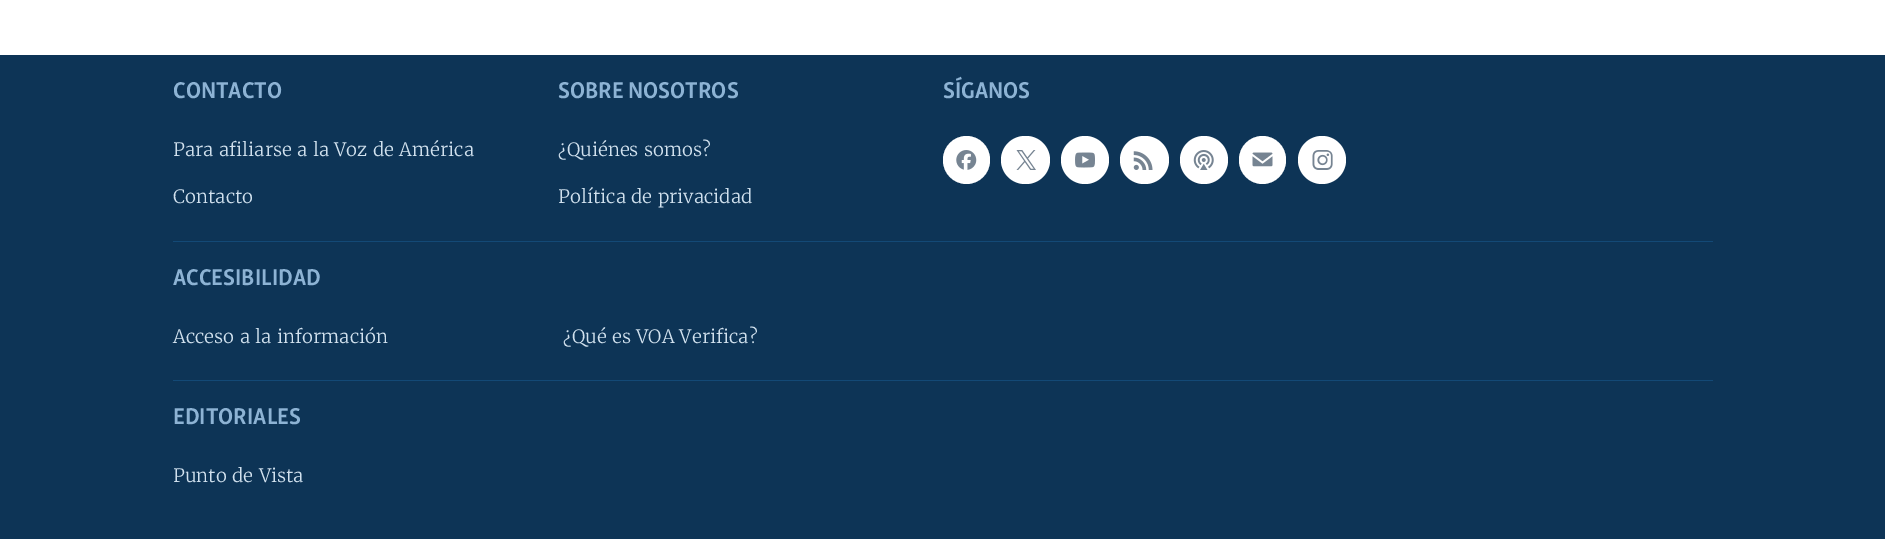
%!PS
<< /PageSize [1885 539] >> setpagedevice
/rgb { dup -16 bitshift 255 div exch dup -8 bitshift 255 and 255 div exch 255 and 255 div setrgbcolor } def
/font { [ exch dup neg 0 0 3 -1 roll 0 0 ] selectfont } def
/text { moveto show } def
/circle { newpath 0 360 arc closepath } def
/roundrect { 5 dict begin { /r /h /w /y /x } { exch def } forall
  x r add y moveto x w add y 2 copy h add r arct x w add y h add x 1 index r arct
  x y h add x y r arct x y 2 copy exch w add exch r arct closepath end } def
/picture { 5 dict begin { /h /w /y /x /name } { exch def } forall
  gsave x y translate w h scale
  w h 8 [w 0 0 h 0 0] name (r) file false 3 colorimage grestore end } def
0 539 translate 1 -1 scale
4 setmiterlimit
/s1 { /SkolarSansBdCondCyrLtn-Bold 23.5 font 16#8DB3D4 rgb } def
/s2 { /Merriweather-Light 18.4 font 16#D1E1EE rgb } def
16#FFFFFF rgb
0 0 1885 539 rectfill
16#0D3456 rgb
0 55 1885 484 rectfill
s1
(CONTACTO) 173 98 text
s2
(Para afiliarse a la Voz de América) 173 156 text
(Contacto) 173 203 text
s1
(SOBRE NOSOTROS) 558 98 text
s2
(¿Quiénes somos?) 558 156 text
(Política de privacidad) 558 203 text
s1
(SÍGANOS) 943 98 text
16#FFFFFF rgb
943 136 47 48 23.5 roundrect fill
(pic1.raw) 956 150 21 20 picture
1001 136 49 48 24 roundrect fill
(pic2.raw) 1016 150 20 20 picture
1085 160 24 circle fill
(pic3.raw) 1075 152 20 16 picture
1120 136 49 48 24 roundrect fill
(pic4.raw) 1133 151 20 19 picture
1204 160 24 circle fill
(pic5.raw) 1193 150 21 20 picture
1239 136 47 48 23.5 roundrect fill
(pic6.raw) 1252 152 21 15 picture
1322 160 24 circle fill
(pic7.raw) 1312 150 21 20 picture
16#134976 rgb
173 241 1540 1 rectfill
s1
(ACCESIBILIDAD) 173 285 text
s2
(Acceso a la información) 173 343 text
(¿Qué es VOA Verifica?) 563 343 text
16#134976 rgb
173 380 1540 1 rectfill
s1
(EDITORIALES) 173 424 text
s2
(Punto de Vista) 173 482 text
showpage
